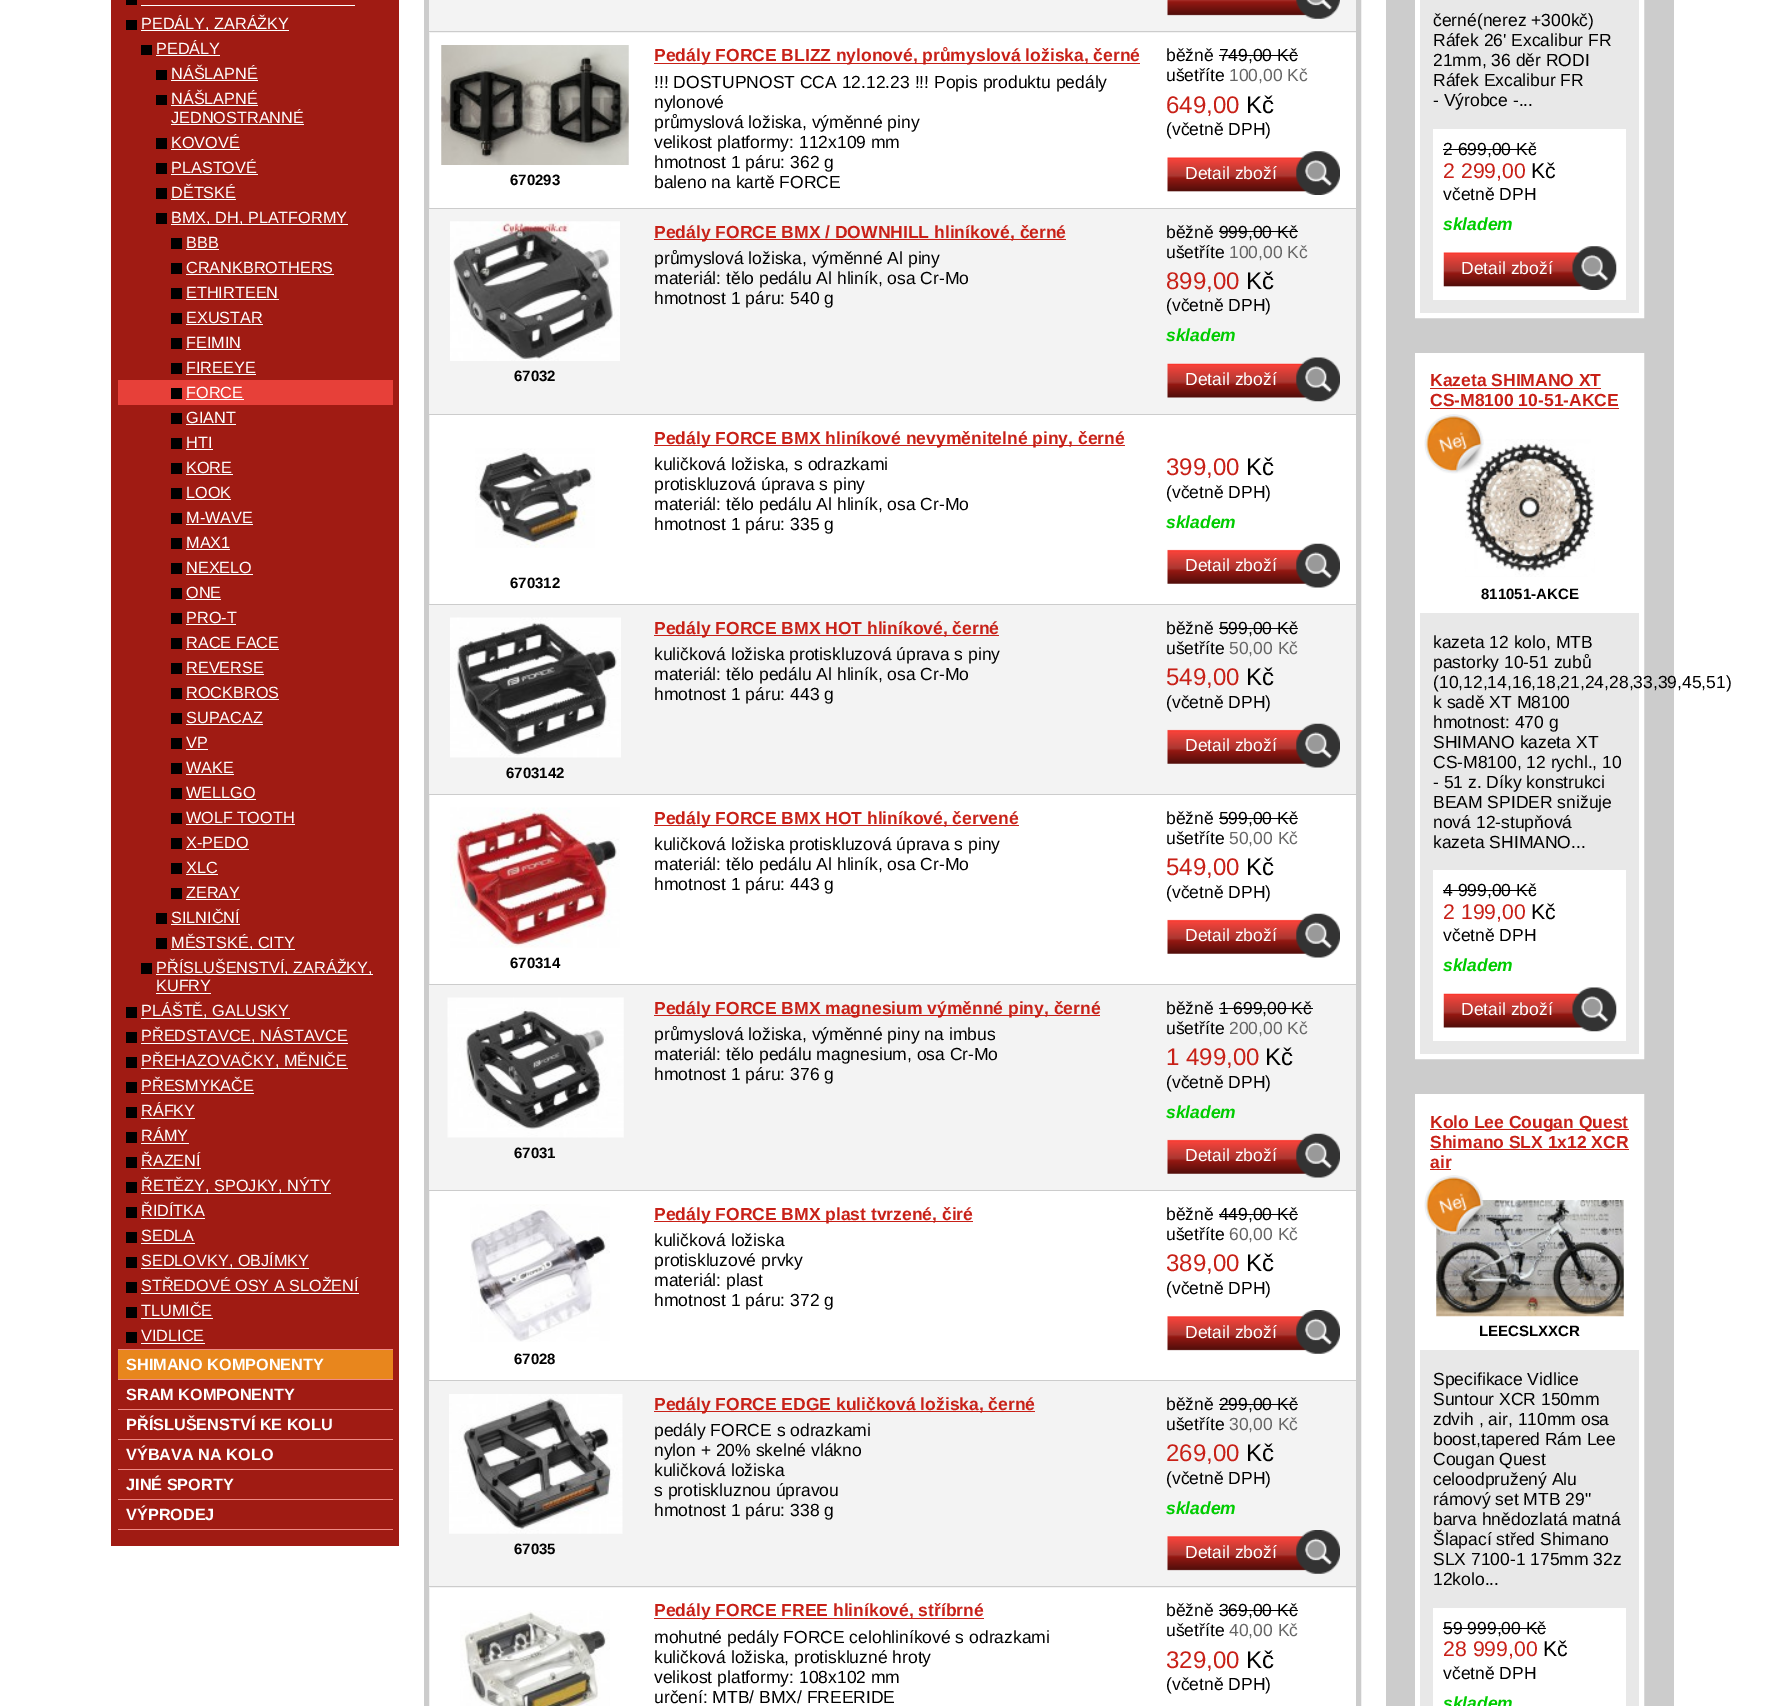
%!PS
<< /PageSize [1785 1706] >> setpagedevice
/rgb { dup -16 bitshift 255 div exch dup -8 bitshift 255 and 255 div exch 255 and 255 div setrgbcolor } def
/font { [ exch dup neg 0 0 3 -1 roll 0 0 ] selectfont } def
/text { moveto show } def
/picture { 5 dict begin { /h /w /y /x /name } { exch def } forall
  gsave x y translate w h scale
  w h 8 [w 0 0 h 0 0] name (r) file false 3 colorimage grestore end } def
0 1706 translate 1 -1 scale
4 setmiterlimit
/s1 { /LiberationSans-Regular 16.25 font 16#FFFFFF rgb } def
/s2 { /LiberationSans-Bold 16.25 font 16#FFFFFF rgb } def
/s3 { /LiberationSans-Bold 15 font 16#000000 rgb } def
/s4 { /LiberationSans-Bold 17.5 font 16#C82017 rgb } def
/s5 { /LiberationSans-Regular 17.5 font 16#000000 rgb } def
/s6 { /LiberationSans-Regular 17.5 font 16#666666 rgb } def
/s7 { /LiberationSans-Regular 24 font 16#C82017 rgb } def
/s8 { /LiberationSans-Regular 24 font 16#000000 rgb } def
/s9 { /LiberationSans-Regular 17.5 font 16#FFFFFF rgb } def
/s10 { /LiberationSans-BoldItalic 17.5 font 16#00CC00 rgb } def
/s11 { /LiberationSans-Regular 21.25 font 16#C82017 rgb } def
/s12 { /LiberationSans-Regular 21.25 font 16#000000 rgb } def
16#FFFFFF rgb
0 0 1785 1706 rectfill
16#A01B13 rgb
111 0 288 1546 rectfill
16#000000 rgb
126 0 11 5 rectfill
16#FFFFFF rgb
141 5 214 1 rectfill
16#000000 rgb
126 20 11 10 rectfill
16#FFFFFF rgb
141 30 148 1 rectfill
s1
(PEDÁLY, ZARÁŽKY) 141 29 text
16#000000 rgb
141 45 11 10 rectfill
s1
(PEDÁLY) 156 54 text
156 55 64 1 rectfill
16#000000 rgb
156 70 11 10 rectfill
s1
(NÁŠLAPNÉ) 171 79 text
171 80 87 1 rectfill
16#000000 rgb
156 95 11 10 rectfill
s1
(NÁŠLAPNÉ) 171 104 text
171 105 87 1 rectfill
(JEDNOSTRANNÉ) 171 123 text
171 124 133 1 rectfill
16#000000 rgb
156 138 11 11 rectfill
s1
(KOVOVÉ) 171 148 text
171 149 69 1 rectfill
16#000000 rgb
156 163 11 11 rectfill
s1
(PLASTOVÉ) 171 173 text
171 174 87 1 rectfill
16#000000 rgb
156 188 11 11 rectfill
s1
(DĚTSKÉ) 171 198 text
171 199 65 1 rectfill
16#000000 rgb
156 213 11 11 rectfill
16#FFFFFF rgb
171 224 177 1 rectfill
(BMX, DH, PLATFORMY) 171 223 text
16#000000 rgb
171 238 11 11 rectfill
s1
(BBB) 186 248 text
186 249 33 1 rectfill
16#000000 rgb
171 263 11 11 rectfill
s1
(CRANKBROTHERS) 186 273 text
186 274 148 1 rectfill
16#000000 rgb
171 288 11 11 rectfill
s1
(ETHIRTEEN) 186 298 text
186 299 93 1 rectfill
16#000000 rgb
171 313 11 11 rectfill
s1
(EXUSTAR) 186 323 text
186 324 77 1 rectfill
16#000000 rgb
171 338 11 11 rectfill
s1
(FEIMIN) 186 348 text
186 349 55 1 rectfill
16#000000 rgb
171 363 11 11 rectfill
s1
(FIREEYE) 186 373 text
186 374 70 1 rectfill
16#E74039 rgb
118 380 275 25 rectfill
16#000000 rgb
171 388 11 11 rectfill
s1
(FORCE) 186 398 text
186 399 58 1 rectfill
16#000000 rgb
171 413 11 11 rectfill
s1
(GIANT) 186 423 text
186 424 50 1 rectfill
16#000000 rgb
171 438 11 11 rectfill
s1
(HTI) 186 448 text
186 449 27 1 rectfill
16#000000 rgb
171 463 11 11 rectfill
s1
(KORE) 186 473 text
186 474 47 1 rectfill
16#000000 rgb
171 488 11 11 rectfill
s1
(LOOK) 186 498 text
186 499 45 1 rectfill
16#000000 rgb
171 513 11 11 rectfill
s1
(M-WAVE) 186 523 text
186 524 67 1 rectfill
16#000000 rgb
171 538 11 11 rectfill
s1
(MAX1) 186 548 text
186 549 44 1 rectfill
16#000000 rgb
171 563 11 11 rectfill
s1
(NEXELO) 186 573 text
186 574 67 1 rectfill
16#000000 rgb
171 588 11 11 rectfill
s1
(ONE) 186 598 text
186 599 35 1 rectfill
16#000000 rgb
171 613 11 11 rectfill
s1
(PRO-T) 186 623 text
186 624 50 1 rectfill
16#000000 rgb
171 638 11 11 rectfill
s1
(RACE FACE) 186 648 text
186 649 93 1 rectfill
16#000000 rgb
171 663 11 11 rectfill
s1
(REVERSE) 186 673 text
186 674 78 1 rectfill
16#000000 rgb
171 688 11 11 rectfill
s1
(ROCKBROS) 186 698 text
186 699 93 1 rectfill
16#000000 rgb
171 713 11 11 rectfill
s1
(SUPACAZ) 186 723 text
186 724 77 1 rectfill
16#000000 rgb
171 738 11 11 rectfill
s1
(VP) 186 748 text
186 749 22 1 rectfill
16#000000 rgb
171 763 11 11 rectfill
s1
(WAKE) 186 773 text
186 774 48 1 rectfill
16#000000 rgb
171 788 11 11 rectfill
s1
(WELLGO) 186 798 text
186 799 70 1 rectfill
16#000000 rgb
171 813 11 11 rectfill
s1
(WOLF TOOTH) 186 823 text
186 824 109 1 rectfill
16#000000 rgb
171 838 11 11 rectfill
s1
(X-PEDO) 186 848 text
186 849 63 1 rectfill
16#000000 rgb
171 863 11 11 rectfill
s1
(XLC) 186 873 text
186 874 32 1 rectfill
16#000000 rgb
171 888 11 11 rectfill
s1
(ZERAY) 186 898 text
186 899 54 1 rectfill
16#000000 rgb
156 913 11 11 rectfill
s1
(SILNIČNÍ) 171 923 text
171 924 69 1 rectfill
16#000000 rgb
156 938 11 11 rectfill
16#FFFFFF rgb
171 949 124 1 rectfill
(MĚSTSKÉ, CITY) 171 948 text
16#000000 rgb
141 963 11 11 rectfill
16#FFFFFF rgb
156 974 217 1 rectfill
(PŘÍSLUŠENSTVÍ, ZARÁŽKY,) 156 973 text
(KUFRY) 156 991 text
156 993 55 1 rectfill
16#000000 rgb
126 1007 11 11 rectfill
16#FFFFFF rgb
141 1018 149 1 rectfill
(PLÁŠTĚ, GALUSKY) 141 1016 text
16#000000 rgb
126 1032 11 11 rectfill
16#FFFFFF rgb
141 1043 207 1 rectfill
(PŘEDSTAVCE, NÁSTAVCE) 141 1041 text
16#000000 rgb
126 1057 11 11 rectfill
16#FFFFFF rgb
141 1068 207 1 rectfill
(PŘEHAZOVAČKY, MĚNIČE) 141 1066 text
16#000000 rgb
126 1082 11 11 rectfill
s1
(PŘESMYKAČE) 141 1091 text
141 1093 113 1 rectfill
16#000000 rgb
126 1107 11 11 rectfill
s1
(RÁFKY) 141 1116 text
141 1118 54 1 rectfill
16#000000 rgb
126 1132 11 11 rectfill
s1
(RÁMY) 141 1141 text
141 1143 48 1 rectfill
16#000000 rgb
126 1157 11 11 rectfill
s1
(ŘAZENÍ) 141 1166 text
141 1168 60 1 rectfill
16#000000 rgb
126 1182 11 11 rectfill
16#FFFFFF rgb
141 1193 190 1 rectfill
(ŘETĚZY, SPOJKY, NÝTY) 141 1191 text
16#000000 rgb
126 1207 11 11 rectfill
s1
(ŘIDÍTKA) 141 1216 text
141 1218 64 1 rectfill
16#000000 rgb
126 1232 11 11 rectfill
s1
(SEDLA) 141 1241 text
141 1243 54 1 rectfill
16#000000 rgb
126 1257 11 11 rectfill
16#FFFFFF rgb
141 1268 168 1 rectfill
(SEDLOVKY, OBJÍMKY) 141 1266 text
16#000000 rgb
126 1282 11 11 rectfill
s1
(STŘEDOVÉ OSY A SLOŽENÍ) 141 1291 text
141 1293 218 1 rectfill
16#000000 rgb
126 1307 11 11 rectfill
s1
(TLUMIČE) 141 1316 text
141 1318 72 1 rectfill
16#000000 rgb
126 1332 11 11 rectfill
s1
(VIDLICE) 141 1341 text
141 1343 64 1 rectfill
16#E8861D rgb
118 1350 275 29 rectfill
16#F08B86 rgb
118 1349 275 1 rectfill
s2
(SHIMANO KOMPONENTY) 126 1370 text
16#F08B86 rgb
118 1379 275 1 rectfill
s2
(SRAM KOMPONENTY) 126 1400 text
16#F08B86 rgb
118 1409 275 1 rectfill
s2
(PŘÍSLUŠENSTVÍ KE KOLU) 126 1430 text
16#F08B86 rgb
118 1439 275 1 rectfill
s2
(VÝBAVA NA KOLO) 126 1460 text
16#F08B86 rgb
118 1469 275 1 rectfill
s2
(JINÉ SPORTY) 126 1490 text
16#F08B86 rgb
118 1499 275 1 rectfill
s2
(VÝPRODEJ) 126 1520 text
16#F08B86 rgb
118 1529 275 1 rectfill
16#CCCCCC rgb
5 setlinewidth
426.5 -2.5 932 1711 rectstroke
16#F3F3F3 rgb
429 0 927 33 rectfill
16#CCCCCC rgb
429 31 927 1 rectfill
(pic1.raw) 1167 0 173 19 picture
429 208 927 1 rectfill
(pic2.raw) 441 45 188 120 picture
s3
(670293) 510 185 text
16#C82017 rgb
654 63 486 1 rectfill
s4
(Pedály FORCE BLIZZ nylonové, průmyslová ložiska, černé) 654 61 text
s5
(!!! DOSTUPNOST CCA 12.12.23 !!! Popis produktu pedály) 654 88 text
(nylonové) 654 108 text
(průmyslová ložiska, výměnné piny) 654 128 text
(velikost platformy: 112x109 mm) 654 148 text
(hmotnost 1 páru: 362 g) 654 168 text
(baleno na kartě FORCE) 654 188 text
(běžně 749,00 Kč) 1166 61 text
1219 55 79 1 rectfill
(ušetříte) 1166 81 text
s6
(100,00 Kč) 1229 81 text
s7
(649,00) 1166 113 text
s8
(Kč) 1246 113 text
s5
(\(včetně DPH\)) 1166 135 text
(pic3.raw) 1167 151 173 44 picture
s9
(Detail zboží) 1185 179 text
16#F3F3F3 rgb
429 209 927 205 rectfill
16#CCCCCC rgb
429 414 927 1 rectfill
(pic4.raw) 450 221 170 140 picture
s3
(67032) 514 381 text
16#C82017 rgb
654 239 412 1 rectfill
s4
(Pedály FORCE BMX / DOWNHILL hliníkové, černé) 654 238 text
s5
(průmyslová ložiska, výměnné Al piny) 654 264 text
(materiál: tělo pedálu Al hliník, osa Cr-Mo) 654 284 text
(hmotnost 1 páru: 540 g) 654 304 text
(běžně 999,00 Kč) 1166 238 text
1219 231 79 1 rectfill
(ušetříte) 1166 258 text
s6
(100,00 Kč) 1229 258 text
s7
(899,00) 1166 289 text
s8
(Kč) 1246 289 text
s5
(\(včetně DPH\)) 1166 311 text
s10
(skladem) 1166 341 text
(pic5.raw) 1167 357 173 45 picture
s9
(Detail zboží) 1185 385 text
16#CCCCCC rgb
429 604 927 1 rectfill
16#C82017 rgb
654 445 471 1 rectfill
s4
(Pedály FORCE BMX hliníkové nevyměnitelné piny, černé) 654 444 text
s5
(kuličková ložiska, s odrazkami) 654 470 text
(protiskluzová úprava s piny) 654 490 text
(materiál: tělo pedálu Al hliník, osa Cr-Mo) 654 510 text
(hmotnost 1 páru: 335 g) 654 530 text
s7
(399,00) 1166 475 text
s8
(Kč) 1246 475 text
s5
(\(včetně DPH\)) 1166 498 text
s10
(skladem) 1166 528 text
(pic6.raw) 1167 543 173 45 picture
s9
(Detail zboží) 1185 571 text
(pic7.raw) 475 448 120 100 picture
s3
(670312) 510 588 text
16#F3F3F3 rgb
429 605 927 189 rectfill
16#CCCCCC rgb
429 794 927 1 rectfill
16#C82017 rgb
654 635 345 1 rectfill
s4
(Pedály FORCE BMX HOT hliníkové, černé) 654 634 text
s5
(kuličková ložiska protiskluzová úprava s piny) 654 660 text
(materiál: tělo pedálu Al hliník, osa Cr-Mo) 654 680 text
(hmotnost 1 páru: 443 g) 654 700 text
(běžně 599,00 Kč) 1166 634 text
1219 628 79 1 rectfill
(ušetříte) 1166 654 text
s6
(50,00 Kč) 1229 654 text
s7
(549,00) 1166 685 text
s8
(Kč) 1246 685 text
s5
(\(včetně DPH\)) 1166 708 text
(pic8.raw) 1167 723 173 45 picture
s9
(Detail zboží) 1185 751 text
(pic9.raw) 450 617 171 141 picture
s3
(6703142) 506 778 text
16#CCCCCC rgb
429 984 927 1 rectfill
16#C82017 rgb
654 825 365 1 rectfill
s4
(Pedály FORCE BMX HOT hliníkové, červené) 654 824 text
s5
(kuličková ložiska protiskluzová úprava s piny) 654 850 text
(materiál: tělo pedálu Al hliník, osa Cr-Mo) 654 870 text
(hmotnost 1 páru: 443 g) 654 890 text
(běžně 599,00 Kč) 1166 824 text
1219 818 79 1 rectfill
(ušetříte) 1166 844 text
s6
(50,00 Kč) 1229 844 text
s7
(549,00) 1166 875 text
s8
(Kč) 1246 875 text
s5
(\(včetně DPH\)) 1166 898 text
(pic6.raw) 1167 913 173 45 picture
s9
(Detail zboží) 1185 941 text
(pic10.raw) 450 807 170 141 picture
s3
(670314) 510 968 text
16#F3F3F3 rgb
429 985 927 205 rectfill
16#CCCCCC rgb
429 1190 927 1 rectfill
(pic11.raw) 447 997 177 141 picture
s3
(67031) 514 1158 text
16#C82017 rgb
654 1015 446 1 rectfill
s4
(Pedály FORCE BMX magnesium výměnné piny, černé) 654 1014 text
s5
(průmyslová ložiska, výměnné piny na imbus) 654 1040 text
(materiál: tělo pedálu magnesium, osa Cr-Mo) 654 1060 text
(hmotnost 1 páru: 376 g) 654 1080 text
(běžně 1 699,00 Kč) 1166 1014 text
1219 1008 94 1 rectfill
(ušetříte) 1166 1034 text
s6
(200,00 Kč) 1229 1034 text
s7
(1 499,00) 1166 1065 text
s8
(Kč) 1265 1065 text
s5
(\(včetně DPH\)) 1166 1088 text
s10
(skladem) 1166 1118 text
(pic8.raw) 1167 1133 173 45 picture
s9
(Detail zboží) 1185 1161 text
16#CCCCCC rgb
429 1380 927 1 rectfill
16#C82017 rgb
654 1221 319 1 rectfill
s4
(Pedály FORCE BMX plast tvrzené, čiré) 654 1220 text
s5
(kuličková ložiska) 654 1246 text
(protiskluzové prvky) 654 1266 text
(materiál: plast) 654 1286 text
(hmotnost 1 páru: 372 g) 654 1306 text
(běžně 449,00 Kč) 1166 1220 text
1219 1214 79 1 rectfill
(ušetříte) 1166 1240 text
s6
(60,00 Kč) 1229 1240 text
s7
(389,00) 1166 1271 text
s8
(Kč) 1246 1271 text
s5
(\(včetně DPH\)) 1166 1294 text
(pic12.raw) 1167 1310 173 44 picture
s9
(Detail zboží) 1185 1338 text
(pic13.raw) 470 1204 140 138 picture
s3
(67028) 514 1364 text
16#F3F3F3 rgb
429 1381 927 207 rectfill
16#CCCCCC rgb
429 1586 927 1 rectfill
(pic14.raw) 449 1394 174 140 picture
s3
(67035) 514 1554 text
16#C82017 rgb
654 1411 381 1 rectfill
s4
(Pedály FORCE EDGE kuličková ložiska, černé) 654 1410 text
s5
(pedály FORCE s odrazkami) 654 1436 text
(nylon + 20% skelné vlákno) 654 1456 text
(kuličková ložiska) 654 1476 text
(s protiskluznou úpravou) 654 1496 text
(hmotnost 1 páru: 338 g) 654 1516 text
(běžně 299,00 Kč) 1166 1410 text
1219 1404 79 1 rectfill
(ušetříte) 1166 1430 text
s6
(30,00 Kč) 1229 1430 text
s7
(269,00) 1166 1461 text
s8
(Kč) 1246 1461 text
s5
(\(včetně DPH\)) 1166 1484 text
s10
(skladem) 1166 1514 text
(pic15.raw) 1167 1530 173 44 picture
s9
(Detail zboží) 1185 1558 text
(pic16.raw) 460 1610 150 96 picture
16#C82017 rgb
654 1618 330 1 rectfill
s4
(Pedály FORCE FREE hliníkové, stříbrné) 654 1616 text
s5
(mohutné pedály FORCE celohliníkové s odrazkami) 654 1643 text
(kuličková ložiska, protiskluzné hroty) 654 1663 text
(velikost platformy: 108x102 mm) 654 1683 text
(určení: MTB/ BMX/ FREERIDE) 654 1703 text
(běžně 369,00 Kč) 1166 1616 text
1219 1610 79 1 rectfill
(ušetříte) 1166 1636 text
s6
(40,00 Kč) 1229 1636 text
s7
(329,00) 1166 1668 text
s8
(Kč) 1246 1668 text
s5
(\(včetně DPH\)) 1166 1690 text
16#CCCCCC rgb
1386 0 288 1706 rectfill
16#FFFFFF rgb
1417.5 -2.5 224 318 rectstroke
16#E8E8E8 rgb
1420 0 219 313 rectfill
s5
(černé\(nerez +300kč\)) 1433 26 text
(Ráfek 26' Excalibur FR) 1433 46 text
(21mm, 36 děr RODI) 1433 66 text
(Ráfek Excalibur FR) 1433 86 text
(- Výrobce -...) 1433 106 text
16#FFFFFF rgb
1433 129 193 171 rectfill
s5
(2 699,00 Kč) 1443 155 text
1443 149 93 1 rectfill
s11
(2 299,00) 1443 178 text
s12
(Kč) 1531 178 text
s5
(včetně DPH) 1443 200 text
s10
(skladem) 1443 230 text
(pic17.raw) 1443 246 174 44 picture
s9
(Detail zboží) 1461 274 text
1417.5 355.5 224 701 rectstroke
1420 358 219 255 rectfill
s4
(Kazeta SHIMANO XT) 1430 386 text
1430 388 171 1 rectfill
(CS-M8100 10-51-AKCE) 1430 406 text
1430 408 189 1 rectfill
(pic19.raw) 1465 439 130 138 picture
(pic18.raw) 1424 414 60 60 picture
s3
(811051-AKCE) 1481 599 text
16#E8E8E8 rgb
1420 613 219 441 rectfill
s5
(kazeta 12 kolo, MTB) 1433 648 text
(pastorky 10-51 zubů) 1433 668 text
(\(10,12,14,16,18,21,24,28,33,39,45,51\)) 1433 688 text
(k sadě XT M8100) 1433 708 text
(hmotnost: 470 g) 1433 728 text
(SHIMANO kazeta XT) 1433 748 text
(CS-M8100, 12 rychl., 10) 1433 768 text
(- 51 z. Díky konstrukci) 1433 788 text
(BEAM SPIDER snižuje) 1433 808 text
(nová 12-stupňová) 1433 828 text
(kazeta SHIMANO...) 1433 848 text
16#FFFFFF rgb
1433 870 193 171 rectfill
s5
(4 999,00 Kč) 1443 896 text
1443 890 93 1 rectfill
s11
(2 199,00) 1443 919 text
s12
(Kč) 1531 919 text
s5
(včetně DPH) 1443 941 text
s10
(skladem) 1443 971 text
(pic20.raw) 1443 987 174 45 picture
s9
(Detail zboží) 1461 1015 text
1417.5 1096.5 224 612 rectstroke
1420 1099 219 251 rectfill
16#C82017 rgb
1430 1129 199 1 rectfill
s4
(Kolo Lee Cougan Quest) 1430 1128 text
(Shimano SLX 1x12 XCR) 1430 1148 text
1430 1149 199 1 rectfill
(air) 1430 1168 text
1430 1169 21 1 rectfill
(pic22.raw) 1436 1200 188 117 picture
(pic21.raw) 1424 1175 60 59 picture
s3
(LEECSLXXCR) 1479 1336 text
16#E8E8E8 rgb
1420 1350 219 356 rectfill
s5
(Specifikace Vidlice) 1433 1385 text
(Suntour XCR 150mm) 1433 1405 text
(zdvih , air, 110mm osa) 1433 1425 text
(boost,tapered Rám Lee) 1433 1445 text
(Cougan Quest) 1433 1465 text
(celoodpružený Alu) 1433 1485 text
(rámový set MTB 29") 1433 1505 text
(barva hnědozlatá matná) 1433 1525 text
(Šlapací střed Shimano) 1433 1545 text
(SLX 7100-1 175mm 32z) 1433 1565 text
(12kolo...) 1433 1585 text
16#FFFFFF rgb
1433 1608 193 98 rectfill
s5
(59 999,00 Kč) 1443 1634 text
1443 1628 103 1 rectfill
s11
(28 999,00) 1443 1656 text
s12
(Kč) 1543 1656 text
s5
(včetně DPH) 1443 1679 text
s10
(skladem) 1443 1709 text
showpage
